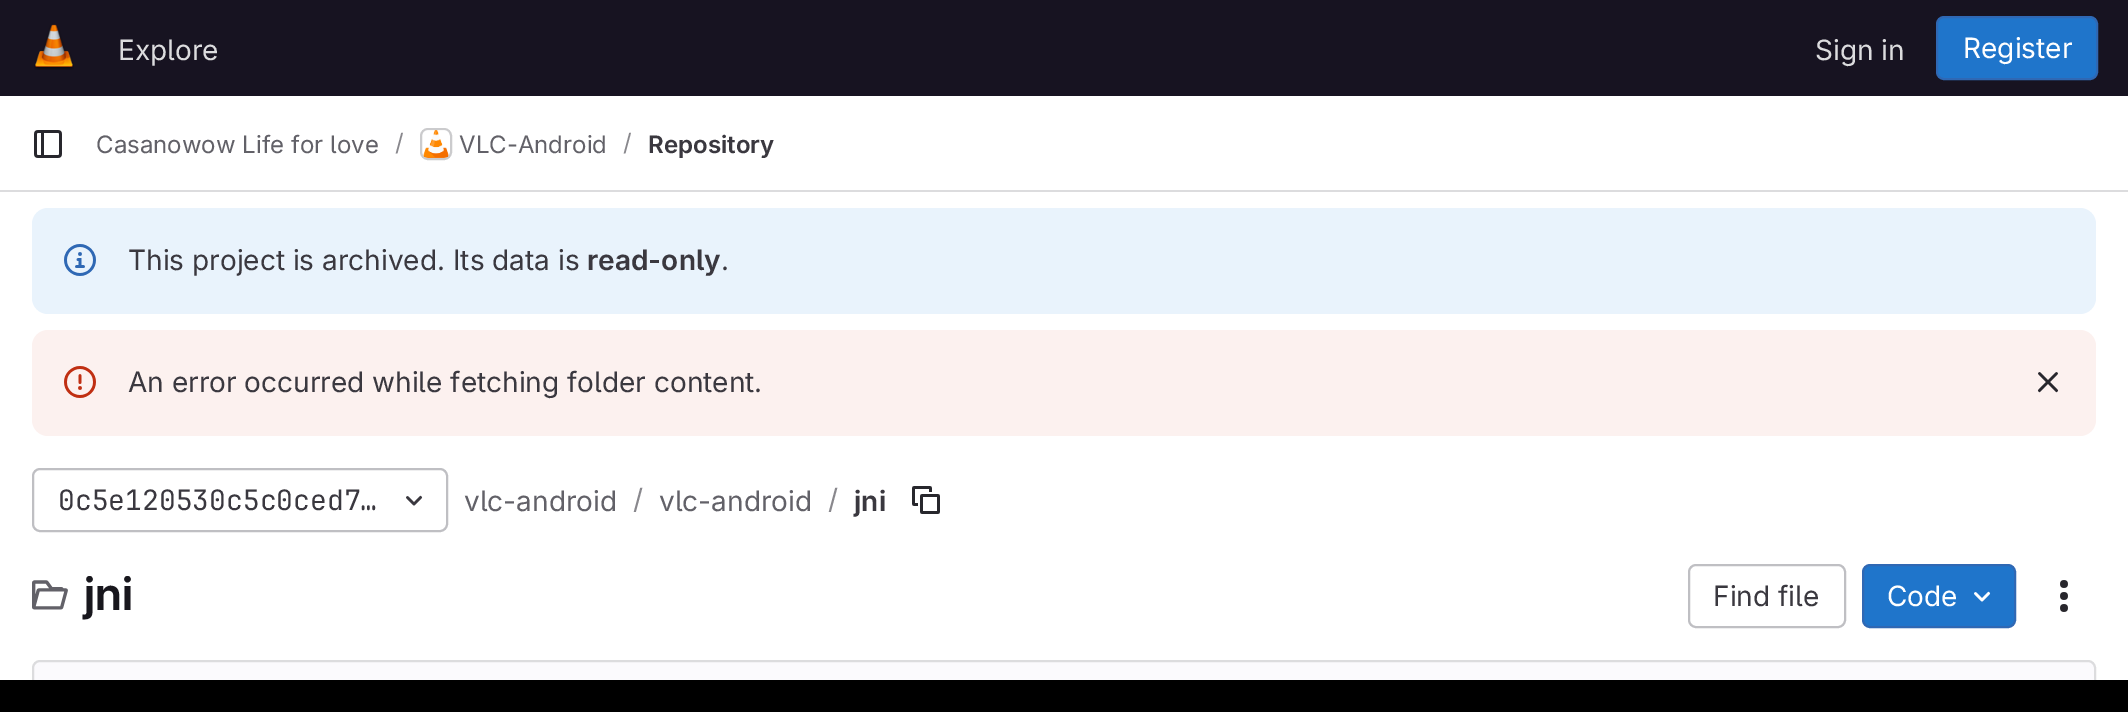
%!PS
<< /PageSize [2128 712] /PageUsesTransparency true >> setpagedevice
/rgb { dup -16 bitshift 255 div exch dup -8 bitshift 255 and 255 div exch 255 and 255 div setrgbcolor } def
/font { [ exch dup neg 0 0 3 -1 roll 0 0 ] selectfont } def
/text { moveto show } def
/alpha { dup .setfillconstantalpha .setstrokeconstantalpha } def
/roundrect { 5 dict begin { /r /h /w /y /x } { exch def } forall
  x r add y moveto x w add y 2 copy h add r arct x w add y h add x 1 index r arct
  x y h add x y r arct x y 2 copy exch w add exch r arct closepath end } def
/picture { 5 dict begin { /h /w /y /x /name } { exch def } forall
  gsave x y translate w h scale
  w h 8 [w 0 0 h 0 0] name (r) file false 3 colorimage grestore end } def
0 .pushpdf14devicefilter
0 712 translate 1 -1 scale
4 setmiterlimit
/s1 { /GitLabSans-Regular 28 font 16#DCDCDE rgb } def
/s2 { /GitLabSans-Regular 28 font 16#FFFFFF rgb } def
/s3 { /GitLabSans-Regular 24 font 16#626168 rgb } def
/s4 { /GitLabSans-Regular 24 font 16#89888D rgb } def
/s5 { /GitLabSans-SemiBold 24 font 16#3A383F rgb } def
/s6 { /GitLabSans-Regular 28 font 16#3A383F rgb } def
/s7 { /GitLabSans-SemiBold 28 font 16#3A383F rgb } def
/s8 { /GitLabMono-Regular 28 font 16#3A383F rgb } def
/s9 { /GitLabSans-Regular 28 font 16#626168 rgb } def
/s10 { /GitLabSans-Regular 28 font 16#89888D rgb } def
/s11 { /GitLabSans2-SemiBold 46 font 16#18171D rgb } def
16#FFFFFF rgb
0 0 2128 712 rectfill
16#171321 rgb
0 0 2128 96 rectfill
(pic1.raw) 34 24 40 46 picture
s1
(Explore) 118 60 text
(Sign in) 1815 60 text
16#1F75CB rgb
1937 17 160 62 7 roundrect gsave fill grestore
16#2F68B4 rgb
2 setlinewidth
stroke
s2
(Register) 1963 58 text
16#DCDCDE rgb
0 190 2128 2 rectfill
(pic2.raw) 34 130 28 28 picture
s3
(Casanowow Life for love) 96 153 text
s4
(/) 395 151 text
16#DCDCDE rgb
421 129 30 30 7 roundrect stroke
(pic3.raw) 423 130 26 28 picture
0.08 alpha
16#050506 rgb
421 129 30 30 7 roundrect stroke
1 alpha
s3
(VLC-Android) 459 153 text
s4
(/) 623 151 text
s5
(Repository) 648 153 text
16#E9F3FC rgb
32 208 2064 106 16 roundrect fill
(pic4.raw) 64 244 32 32 picture
s6
(This project is archived. Its data is) 128 270 text
s7
(read-only) 587 270 text
s6
(.) 721 270 text
16#FCF1EF rgb
32 330 2064 106 16 roundrect fill
(pic5.raw) 64 366 32 32 picture
s6
(An error occurred while fetching folder content.) 128 392 text
(pic6.raw) 2037 372 22 21 picture
16#BFBFC3 rgb
33 469 414 62 7 roundrect stroke
s8
(0c5e120530c5c0ced7…) 58 510 text
(pic7.raw) 406 495 17 11 picture
s9
(vlc-android) 464 511 text
s10
(/) 633 509 text
s9
(vlc-android) 659 511 text
s10
(/) 828 509 text
s7
(jni) 854 511 text
(pic8.raw) 912 486 28 28 picture
(pic9.raw) 32 580 36 30 picture
s11
(jni) 84 610 text
16#BFBFC3 rgb
1689 565 156 62 7 roundrect stroke
s6
(Find file) 1713 606 text
16#1F75CB rgb
1863 565 152 62 7 roundrect gsave fill grestore
16#2F68B4 rgb
stroke
s2
(Code) 1887 606 text
(pic10.raw) 1974 591 17 11 picture
(pic11.raw) 2060 580 8 32 picture
16#FBFAFD rgb
33 661 2062 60 7 roundrect gsave fill grestore
16#DCDCDE rgb
stroke
16#000000 rgb
0 680 2128 32 rectfill
.poppdf14devicefilter showpage
